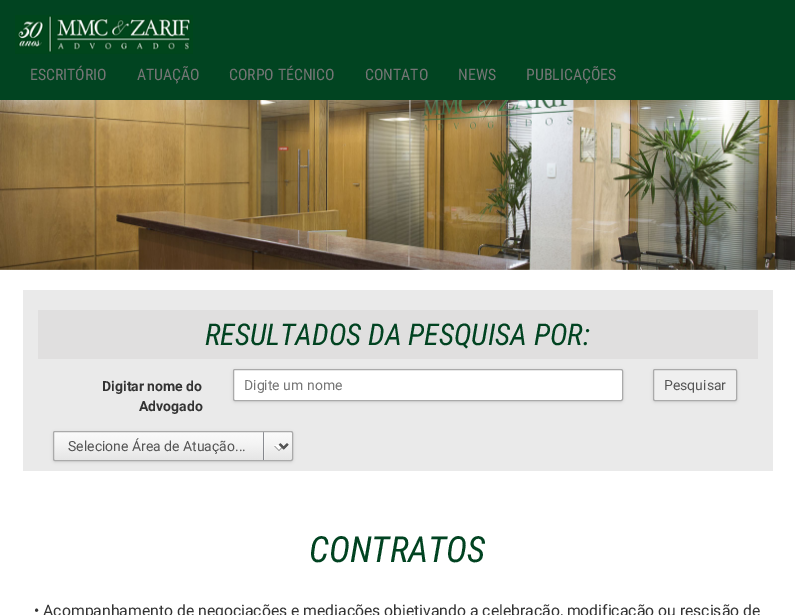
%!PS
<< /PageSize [795 615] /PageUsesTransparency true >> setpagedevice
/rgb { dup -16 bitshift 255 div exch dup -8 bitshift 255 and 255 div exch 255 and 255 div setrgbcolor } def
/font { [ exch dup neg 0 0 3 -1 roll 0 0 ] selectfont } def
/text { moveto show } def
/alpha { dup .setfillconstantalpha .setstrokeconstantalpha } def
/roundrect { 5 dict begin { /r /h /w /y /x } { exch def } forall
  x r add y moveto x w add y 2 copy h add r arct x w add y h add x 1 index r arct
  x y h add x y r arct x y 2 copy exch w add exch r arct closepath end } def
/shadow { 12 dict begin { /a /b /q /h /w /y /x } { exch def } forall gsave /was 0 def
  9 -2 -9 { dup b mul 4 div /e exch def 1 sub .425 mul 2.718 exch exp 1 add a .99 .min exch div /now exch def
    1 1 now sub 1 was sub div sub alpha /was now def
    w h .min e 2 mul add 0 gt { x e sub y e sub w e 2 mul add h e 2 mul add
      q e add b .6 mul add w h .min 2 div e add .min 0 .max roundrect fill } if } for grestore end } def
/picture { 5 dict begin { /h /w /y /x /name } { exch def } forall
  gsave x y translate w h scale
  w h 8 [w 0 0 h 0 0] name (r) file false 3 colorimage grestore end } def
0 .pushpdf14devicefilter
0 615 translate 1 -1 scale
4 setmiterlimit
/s1 { /RobotoCondensed-Regular 15.75 font 16#757575 rgb } def
/s2 { /RobotoCondensed-Italic 30 font 16#014321 rgb } def
/s3 { /Roboto-Bold 14 font 16#333333 rgb } def
/s4 { /Roboto-Regular 14 font 16#757575 rgb } def
/s5 { /Roboto-Regular 14 font 16#555555 rgb } def
/s6 { /RobotoCondensed-Italic 36 font 16#014321 rgb } def
/s7 { /Roboto-Regular 15.75 font 16#333333 rgb } def
16#FFFFFF rgb
0 0 795 615 rectfill
16#014421 rgb
0 0 795 100 rectfill
(pic1.raw) 15 15 178 39 picture
s1
(ESCRITÓRIO) 30 80 text
(ATUAÇÃO) 137 80 text
(CORPO TÉCNICO) 229 80 text
(CONTATO) 365 80 text
(NEWS) 458 80 text
(PUBLICAÇÕES) 526 80 text
(pic2.raw) 0 100 795 170 picture
16#EAEAEA rgb
23 290 750 181 rectfill
16#E0DFDF rgb
38 310 720 49 rectfill
s2
(RESULTADOS DA PESQUISA POR:) 205 345 text
s3
(Digitar nome do) 102 391 text
(Advogado) 139 411 text
16#000000 rgb
233 370 390 32 2 1.5 0.1 shadow
16#FFFFFF rgb
233.5 369.5 389 31 1.5 roundrect gsave fill grestore
16#AAAAAA rgb
stroke
s4
(Digite um nome) 244 390 text
16#000000 rgb
653 370 84 32 2 1.5 0.1 shadow
16#EFEFEF rgb
653.5 369.5 83 31 1.5 roundrect gsave fill grestore
16#AAAAAA rgb
stroke
s5
(Pesquisar) 664 390 text
16#000000 rgb
53 432 240 30 2 1.5 0.1 shadow
(pic3.raw) 54 432 238 28 picture
16#AAAAAA rgb
53.5 431.5 239 29 1.5 roundrect stroke
16#555555 rgb
2 setlinewidth
279.5 444 moveto 283.5 448 lineto 287.5 444 lineto stroke
(Selecione Área de Atuação...) 68 451 text
s6
(CONTRATOS) 309 562 text
s7
(• Acompanhamento de negociações e mediações objetivando a celebração, modificação ou rescisão de) 34 616 text
.poppdf14devicefilter showpage
